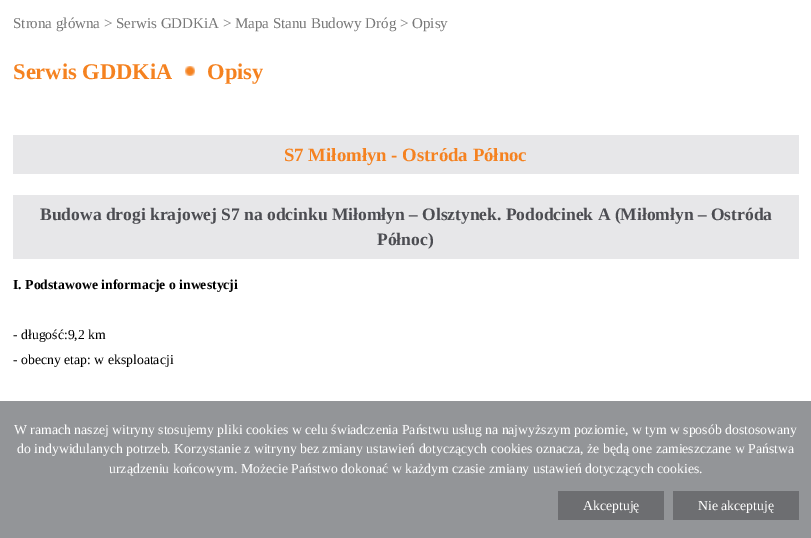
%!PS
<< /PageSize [811 538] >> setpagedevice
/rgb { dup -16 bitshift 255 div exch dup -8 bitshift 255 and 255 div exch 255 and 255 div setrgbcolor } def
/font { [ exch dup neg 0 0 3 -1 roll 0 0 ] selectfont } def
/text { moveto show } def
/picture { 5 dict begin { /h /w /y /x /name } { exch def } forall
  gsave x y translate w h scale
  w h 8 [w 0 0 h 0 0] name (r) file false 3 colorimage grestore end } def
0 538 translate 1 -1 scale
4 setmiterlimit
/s1 { /LiberationSerif-Regular 15 font 16#787878 rgb } def
/s2 { /LiberationSerif-Bold 22.5 font 16#F58220 rgb } def
/s3 { /LiberationSerif-Bold 18.75 font 16#F58220 rgb } def
/s4 { /LiberationSerif-Bold 17.5 font 16#4C4D52 rgb } def
/s5 { /LiberationSerif-Bold 13.75 font 16#000000 rgb } def
/s6 { /LiberationSerif-Regular 13.75 font 16#000000 rgb } def
/s7 { /LiberationSerif-Regular 13.75 font 16#FFFFFF rgb } def
16#FFFFFF rgb
0 0 811 538 rectfill
s1
(Strona główna > Serwis GDDKiA > Mapa Stanu Budowy Dróg > Opisy) 13 28 text
s2
(Serwis GDDKiA) 13 79 text
(pic1.raw) 185 66 10 10 picture
(Opisy) 207 79 text
16#E7E7E9 rgb
13 135 786 39 rectfill
s3
(S7 Miłomłyn - Ostróda Północ) 284 161 text
16#E7E7E9 rgb
13 195 786 64 rectfill
s4
(Budowa drogi krajowej S7 na odcinku Miłomłyn – Olsztynek. Pododcinek A \(Miłomłyn – Ostróda) 40 220 text
(Północ\)) 377 245 text
s5
(I. Podstawowe informacje o inwestycji) 13 289 text
s6
(- długość:9,2 km) 13 339 text
(- obecny etap: w eksploatacji) 13 364 text
16#939598 rgb
0 401 811 137 rectfill
s7
(W ramach naszej witryny stosujemy pliki cookies w celu świadczenia Państwu usług na najwyższym poziomie, w tym w sposób dostosowany) 14 434 text
(do indywidulanych potrzeb. Korzystanie z witryny bez zmiany ustawień dotyczących cookies oznacza, że będą one zamieszczane w Państwa) 17 453 text
(urządzeniu końcowym. Możecie Państwo dokonać w każdym czasie zmiany ustawień dotyczących cookies.) 109 473 text
16#6D6E71 rgb
558 491 106 29 rectfill
s7
(Akceptuję) 583 510 text
16#6D6E71 rgb
673 491 126 29 rectfill
s7
(Nie akceptuję) 698 510 text
showpage
